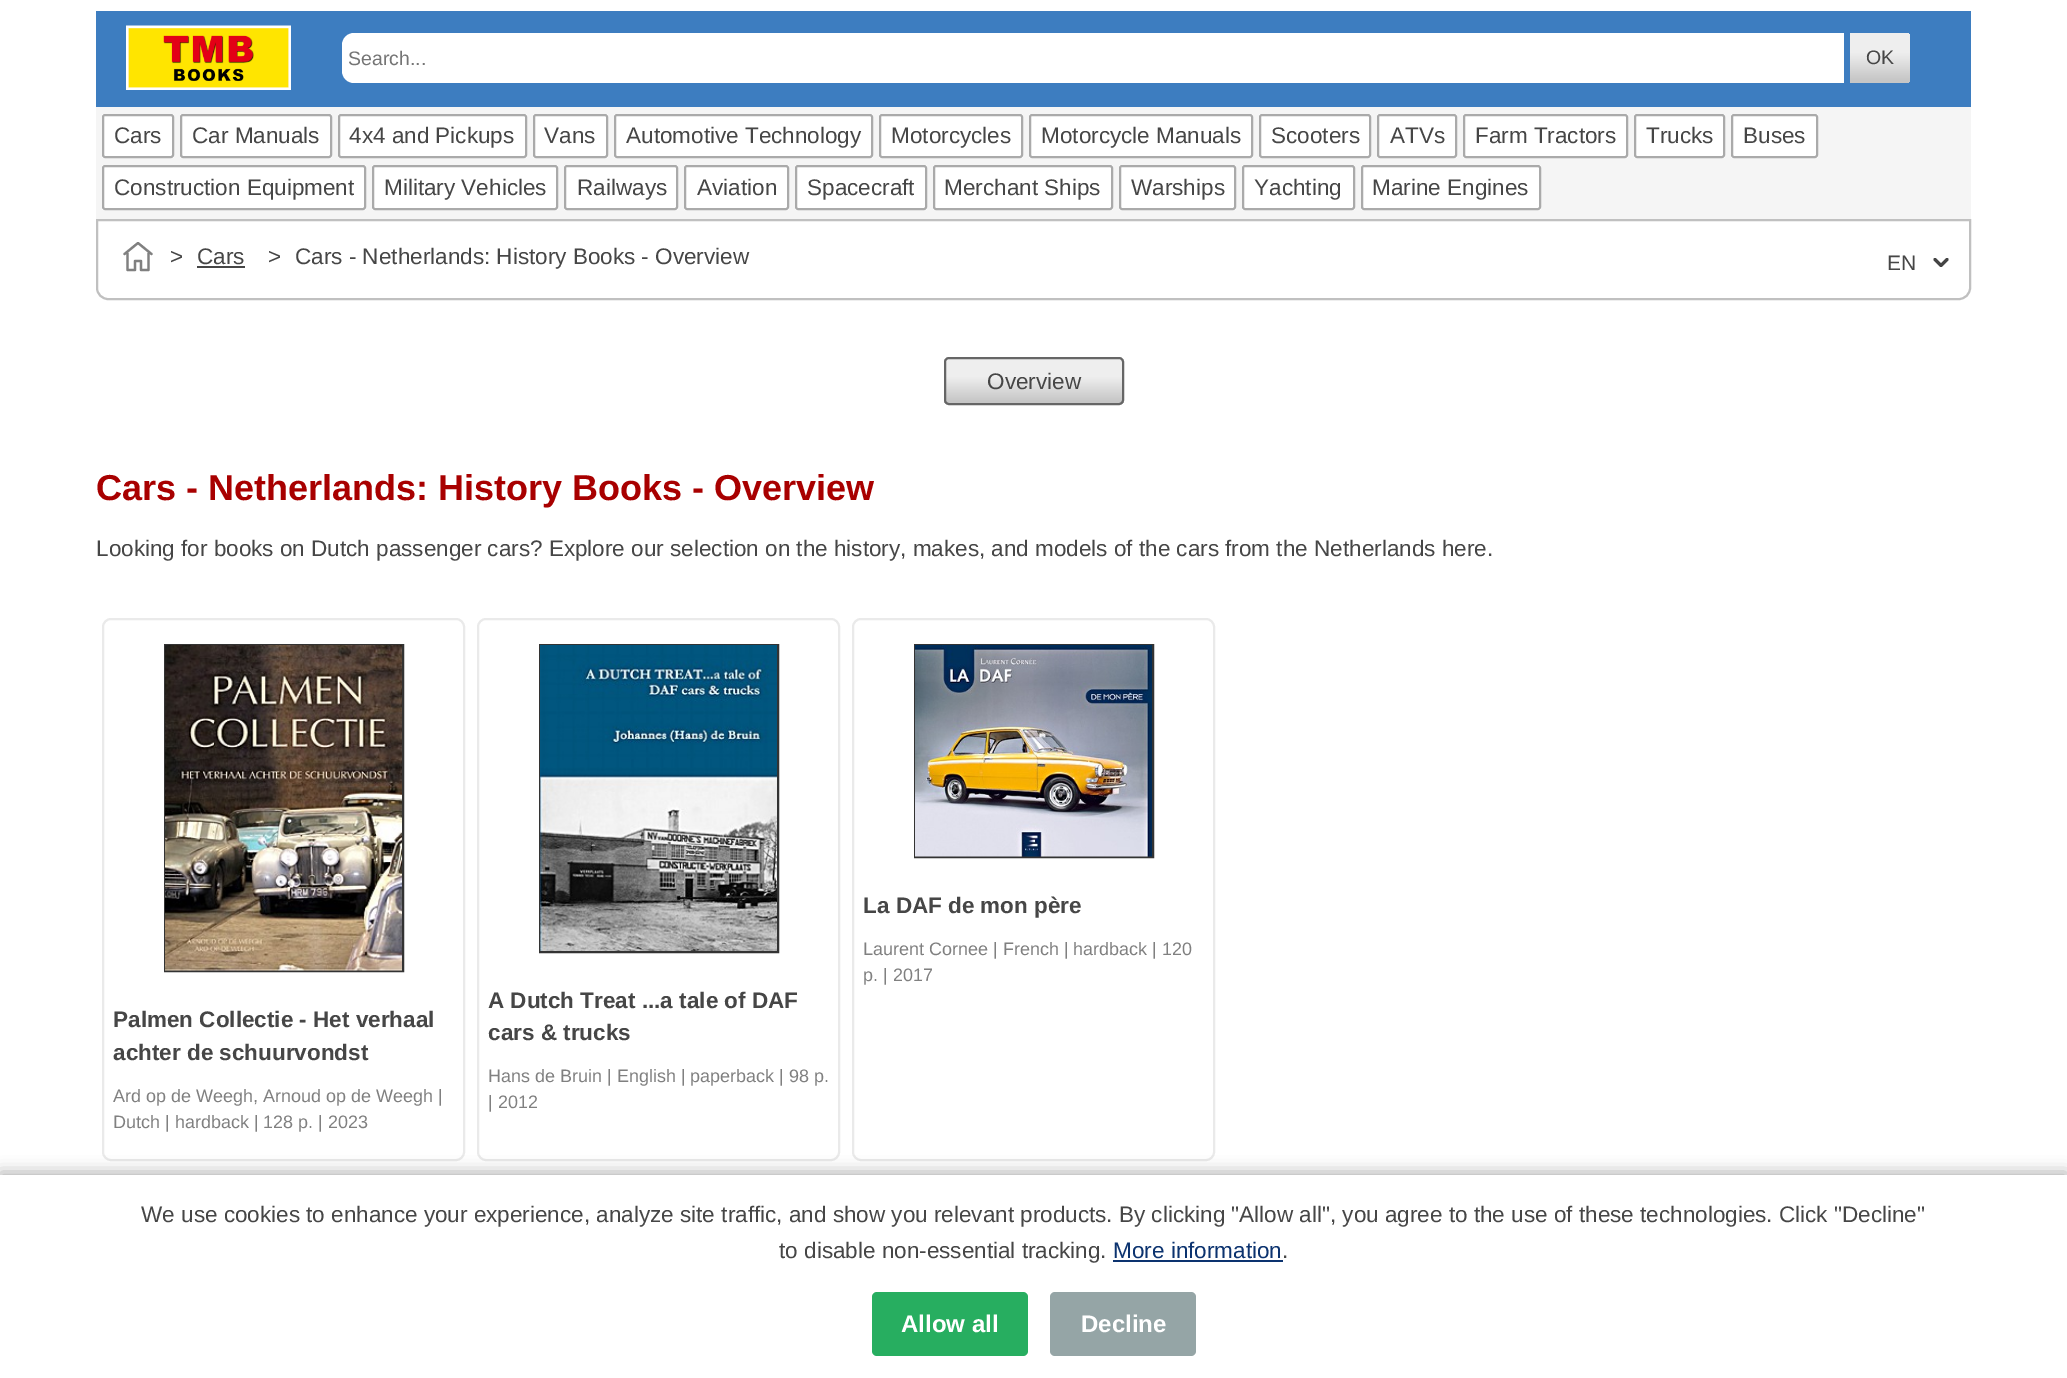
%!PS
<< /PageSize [2067 1378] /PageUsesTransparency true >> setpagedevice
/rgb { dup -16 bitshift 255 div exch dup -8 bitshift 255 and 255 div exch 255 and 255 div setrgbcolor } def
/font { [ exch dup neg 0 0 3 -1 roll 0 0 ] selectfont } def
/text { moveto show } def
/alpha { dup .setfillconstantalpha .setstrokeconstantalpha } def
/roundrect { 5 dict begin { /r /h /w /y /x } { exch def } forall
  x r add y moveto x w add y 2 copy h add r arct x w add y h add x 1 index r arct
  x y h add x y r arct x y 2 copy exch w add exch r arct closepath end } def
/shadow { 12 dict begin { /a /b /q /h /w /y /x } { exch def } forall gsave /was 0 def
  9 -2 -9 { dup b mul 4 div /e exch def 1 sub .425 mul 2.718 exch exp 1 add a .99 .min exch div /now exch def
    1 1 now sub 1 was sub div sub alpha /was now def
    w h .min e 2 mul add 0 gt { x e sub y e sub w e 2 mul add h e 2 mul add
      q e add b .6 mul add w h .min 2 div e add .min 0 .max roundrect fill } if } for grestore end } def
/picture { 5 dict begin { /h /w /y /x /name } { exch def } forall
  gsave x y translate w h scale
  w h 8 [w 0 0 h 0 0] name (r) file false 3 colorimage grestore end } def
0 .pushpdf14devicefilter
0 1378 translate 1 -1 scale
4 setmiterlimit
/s1 { /LiberationSans-Regular 19.5 font 16#757575 rgb } def
/s2 { /LiberationSans-Regular 19.5 font 16#464646 rgb } def
/s3 { /LiberationSans-Regular 22.5 font 16#464646 rgb } def
/s4 { /LiberationSans-Regular 21 font 16#464646 rgb } def
/s5 { /LiberationSans-Bold 36 font 16#A80000 rgb } def
/s6 { /LiberationSans-Bold 22.5 font 16#464646 rgb } def
/s7 { /LiberationSans-Regular 18 font 16#808080 rgb } def
/s8 { /LiberationSans-Regular 22.5 font 16#0C336F rgb } def
/s9 { /LiberationSans-Bold 24 font 16#FFFFFF rgb } def
16#FFFFFF rgb
0 0 2067 1378 rectfill
16#3D7DC0 rgb
96 11 1875 96 rectfill
(pic1.raw) 126 25 165 65 picture
16#FFFFFF rgb
354 33 moveto 1844 33 lineto 1844 83 lineto 354 83 lineto 347.5 83 342 77.5 342 71 curveto 342 45 lineto 342 38.5 347.5 33 354 33 curveto closepath fill
s1
(Search...) 348 65 text
gsave 1850 33 moveto 1905 33 lineto 1908 33 1910 35 1910 38 curveto 1910 78 lineto 1910 81 1908 83 1905 83 curveto 1850 83 lineto closepath clip newpath
<< /ShadingType 2 /ColorSpace /DeviceRGB /Coords [1880 33 1880 83] /Extend [true true] /Function << /FunctionType 3 /Domain [0 1] /Functions [<< /FunctionType 2 /Domain [0 1] /C0 [0.933 0.933 0.933] /C1 [0.933 0.933 0.933] /N 1 >> << /FunctionType 2 /Domain [0 1] /C0 [0.933 0.933 0.933] /C1 [0.776 0.776 0.776] /N 1 >> << /FunctionType 2 /Domain [0 1] /C0 [0.776 0.776 0.776] /C1 [0.776 0.776 0.776] /N 1 >>] /Bounds [0.4 0.95] /Encode [0 1 0 1 0 1] >> >> shfill grestore
s2
(OK) 1866 64 text
16#F5F5F5 rgb
96 107 1875 112 rectfill
16#FFFFFF rgb
102 114 72 44 rectfill
16#AAAAAA rgb
2 setlinewidth
103 115 70 42 2 roundrect stroke
s3
(Cars) 114 143 text
16#FFFFFF rgb
180 114 152 44 rectfill
16#AAAAAA rgb
181 115 150 42 2 roundrect stroke
s3
(Car Manuals) 192 143 text
16#FFFFFF rgb
338 114 189 44 rectfill
16#AAAAAA rgb
339 115 187 42 2 roundrect stroke
s3
(4x4 and Pickups) 349 143 text
16#FFFFFF rgb
533 114 75 44 rectfill
16#AAAAAA rgb
534 115 73 42 2 roundrect stroke
s3
(Vans) 544 143 text
16#FFFFFF rgb
614 114 259 44 rectfill
16#AAAAAA rgb
615 115 257 42 2 roundrect stroke
s3
(Automotive Technology) 626 143 text
16#FFFFFF rgb
879 114 144 44 rectfill
16#AAAAAA rgb
880 115 142 42 2 roundrect stroke
s3
(Motorcycles) 891 143 text
16#FFFFFF rgb
1029 114 224 44 rectfill
16#AAAAAA rgb
1030 115 222 42 2 roundrect stroke
s3
(Motorcycle Manuals) 1041 143 text
16#FFFFFF rgb
1259 114 112 44 rectfill
16#AAAAAA rgb
1260 115 110 42 2 roundrect stroke
s3
(Scooters) 1271 143 text
16#FFFFFF rgb
1377 114 80 44 rectfill
16#AAAAAA rgb
1378 115 78 42 2 roundrect stroke
s3
(ATVs) 1390 143 text
16#FFFFFF rgb
1463 114 165 44 rectfill
16#AAAAAA rgb
1464 115 163 42 2 roundrect stroke
s3
(Farm Tractors) 1475 143 text
16#FFFFFF rgb
1634 114 91 44 rectfill
16#AAAAAA rgb
1635 115 89 42 2 roundrect stroke
s3
(Trucks) 1646 143 text
16#FFFFFF rgb
1731 114 87 44 rectfill
16#AAAAAA rgb
1732 115 85 42 2 roundrect stroke
s3
(Buses) 1743 143 text
16#FFFFFF rgb
102 165 264 45 rectfill
16#AAAAAA rgb
103 166 262 43 2 roundrect stroke
s3
(Construction Equipment) 114 195 text
16#FFFFFF rgb
372 165 186 45 rectfill
16#AAAAAA rgb
373 166 184 43 2 roundrect stroke
s3
(Military Vehicles) 384 195 text
16#FFFFFF rgb
564 165 114 45 rectfill
16#AAAAAA rgb
565 166 112 43 2 roundrect stroke
s3
(Railways) 577 195 text
16#FFFFFF rgb
684 165 105 45 rectfill
16#AAAAAA rgb
685 166 103 43 2 roundrect stroke
s3
(Aviation) 697 195 text
16#FFFFFF rgb
795 165 132 45 rectfill
16#AAAAAA rgb
796 166 130 43 2 roundrect stroke
s3
(Spacecraft) 807 195 text
16#FFFFFF rgb
933 165 180 45 rectfill
16#AAAAAA rgb
934 166 178 43 2 roundrect stroke
s3
(Merchant Ships) 944 195 text
16#FFFFFF rgb
1119 165 117 45 rectfill
16#AAAAAA rgb
1120 166 115 43 2 roundrect stroke
s3
(Warships) 1131 195 text
16#FFFFFF rgb
1242 165 113 45 rectfill
16#AAAAAA rgb
1243 166 111 43 2 roundrect stroke
s3
(Yachting) 1254 195 text
16#FFFFFF rgb
1361 165 180 45 rectfill
16#AAAAAA rgb
1362 166 178 43 2 roundrect stroke
s3
(Marine Engines) 1372 195 text
16#C0C0C0 rgb
97 220 moveto 1970 220 lineto 1970 288 lineto 1970 294 1965 299 1959 299 curveto 108 299 lineto 102 299 97 294 97 288 curveto closepath stroke
16#808080 rgb
2.2 setlinewidth
1 setlinecap
1 setlinejoin
124.5 254 moveto 138 243 lineto 151.5 254 lineto 127.5 253.5 moveto 127.5 270 lineto 135 270 lineto 135 261 lineto 141 261 lineto 141 270 lineto 148.5 270 lineto 148.5 253.5 lineto stroke
s3
(>) 170 264 text
(Cars) 197 264 text
197 266 48 2 rectfill
(>) 268 264 text
(Cars - Netherlands: History Books - Overview) 295 264 text
16#444444 rgb
3 setlinewidth
1935 259.5 moveto 1941 265.5 lineto 1947 259.5 lineto stroke
s4
(EN) 1887 270 text
gsave
944 357 180 48 5 roundrect clip newpath
gsave 944 359 moveto 1124 359 lineto 1124 404 lineto 944 404 lineto closepath clip newpath
<< /ShadingType 2 /ColorSpace /DeviceRGB /Coords [1034 359 1034 404] /Extend [true true] /Function << /FunctionType 3 /Domain [0 1] /Functions [<< /FunctionType 2 /Domain [0 1] /C0 [0.933 0.933 0.933] /C1 [0.933 0.933 0.933] /N 1 >> << /FunctionType 2 /Domain [0 1] /C0 [0.933 0.933 0.933] /C1 [0.776 0.776 0.776] /N 1 >> << /FunctionType 2 /Domain [0 1] /C0 [0.776 0.776 0.776] /C1 [0.776 0.776 0.776] /N 1 >>] /Bounds [0.4 0.95] /Encode [0 1 0 1 0 1] >> >> shfill grestore
grestore
16#666666 rgb
2 setlinewidth
0 setlinecap
0 setlinejoin
945 358 178 46 4 roundrect stroke
s3
(Overview) 987 389 text
s5
(Cars - Netherlands: History Books - Overview) 96 500 text
s3
(Looking for books on Dutch passenger cars? Explore our selection on the history, makes, and models of the cars from the Netherlands here.) 96 556 text
16#EAEAEA rgb
853 619 361 541 8 roundrect stroke
16#333333 rgb
915 645 238 212 rectstroke
(pic2.raw) 915 645 237 212 picture
s6
(La DAF de mon père) 863 913 text
s7
(Laurent Cornee | French | hardback | 120) 863 955 text
(p. | 2017) 863 981 text
16#EAEAEA rgb
103 619 361 541 8 roundrect stroke
16#333333 rgb
165 645 238 326 rectstroke
(pic3.raw) 165 645 237 326 picture
s6
(Palmen Collectie - Het verhaal) 113 1027 text
(achter de schuurvondst) 113 1060 text
s7
(Ard op de Weegh, Arnoud op de Weegh |) 113 1102 text
(Dutch | hardback | 128 p. | 2023) 113 1128 text
16#EAEAEA rgb
478 619 361 541 8 roundrect stroke
16#333333 rgb
540 645 238 307 rectstroke
(pic4.raw) 540 645 237 306 picture
s6
(A Dutch Treat ...a tale of DAF) 488 1008 text
(cars & trucks) 488 1040 text
s7
(Hans de Bruin | English | paperback | 98 p.) 488 1082 text
(| 2012) 488 1108 text
16#000000 rgb
0 1172 2067 204 0 7.5 0.3 shadow
16#FFFFFF rgb
0 1175 2067 203 rectfill
s3
(We use cookies to enhance your experience, analyze site traffic, and show you relevant products. By clicking "Allow all", you agree to the use of these technologies. Click "Decline") 141 1222 text
(to disable non-essential tracking.) 779 1258 text
s8
(More information) 1113 1258 text
1113 1260 170 2 rectfill
s3
(.) 1282 1258 text
16#27AE60 rgb
872 1292 156 64 5 roundrect fill
s9
(Allow all) 901 1332 text
16#95A5A6 rgb
1050 1292 146 64 5 roundrect fill
s9
(Decline) 1081 1332 text
.poppdf14devicefilter showpage
